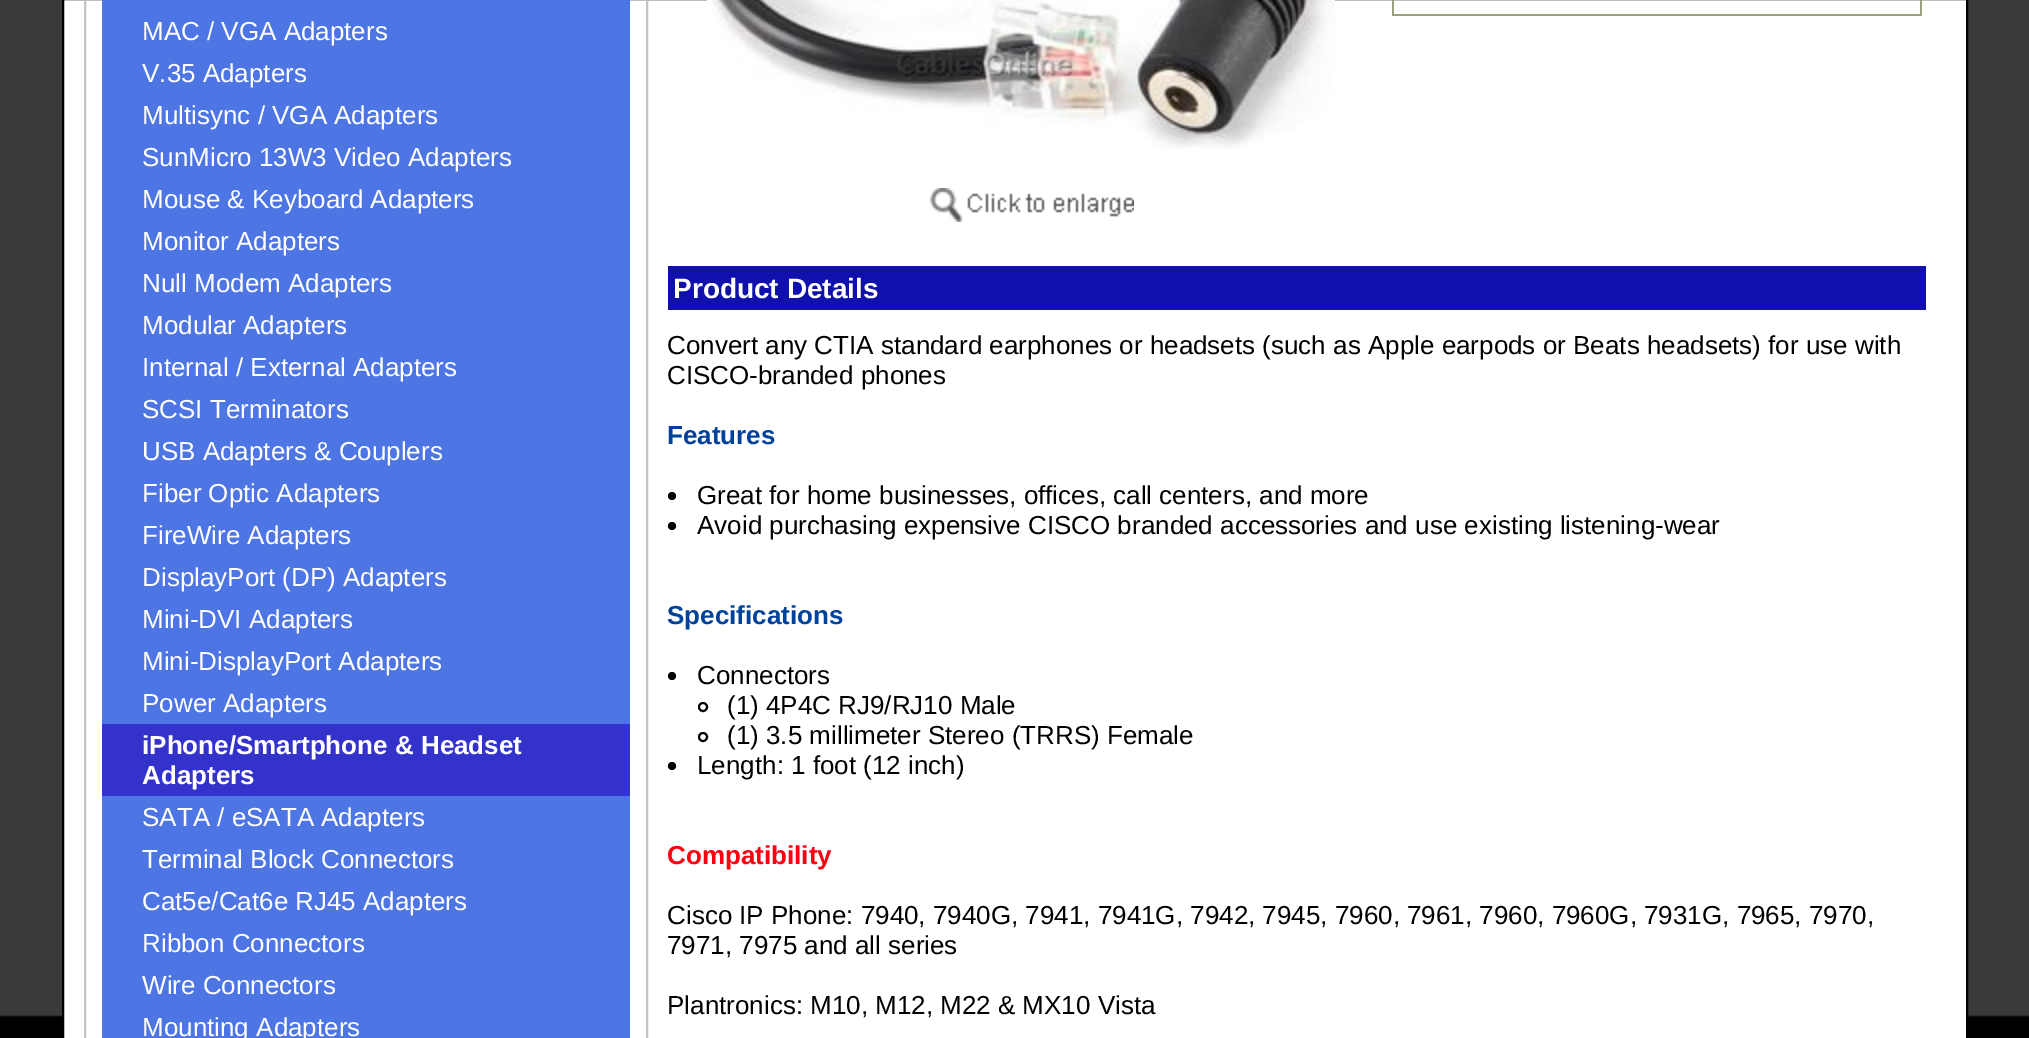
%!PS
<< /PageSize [2029 1038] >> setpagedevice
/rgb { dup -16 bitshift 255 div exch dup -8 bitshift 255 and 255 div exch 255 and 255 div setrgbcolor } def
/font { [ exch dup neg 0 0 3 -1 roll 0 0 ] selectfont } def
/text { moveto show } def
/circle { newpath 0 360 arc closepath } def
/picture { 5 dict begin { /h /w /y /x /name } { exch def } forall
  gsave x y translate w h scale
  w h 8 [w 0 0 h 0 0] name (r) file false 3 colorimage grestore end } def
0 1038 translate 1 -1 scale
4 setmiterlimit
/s1 { /LiberationSans-Regular 26 font 16#FFFFFF rgb } def
/s2 { /LiberationSans-Bold 26 font 16#FFFFFF rgb } def
/s3 { /LiberationSans-Bold 28 font 16#FFFFFF rgb } def
/s4 { /LiberationSans-Regular 26 font 16#000000 rgb } def
/s5 { /LiberationSans-Bold 26 font 16#00429A rgb } def
/s6 { /LiberationSans-Bold 26 font 16#FF0010 rgb } def
16#000000 rgb
0 0 2029 1038 rectfill
(pic1.raw) 0 0 2029 1017 picture
16#FFFFFF rgb
63 -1 moveto 1967 -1 lineto 1967 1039 lineto 63 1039 lineto closepath gsave fill grestore
16#000000 rgb
2 setlinewidth
stroke
16#C7C3C4 rgb
85 -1 562 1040 rectstroke
16#4E75E4 rgb
102 0 528 724 rectfill
s1
(MAC / VGA Adapters) 142 40 text
(V.35 Adapters) 142 82 text
(Multisync / VGA Adapters) 142 124 text
(SunMicro 13W3 Video Adapters) 142 166 text
(Mouse & Keyboard Adapters) 142 208 text
(Monitor Adapters) 142 250 text
(Null Modem Adapters) 142 292 text
(Modular Adapters) 142 334 text
(Internal / External Adapters) 142 376 text
(SCSI Terminators) 142 418 text
(USB Adapters & Couplers) 142 460 text
(Fiber Optic Adapters) 142 502 text
(FireWire Adapters) 142 544 text
(DisplayPort \(DP\) Adapters) 142 586 text
(Mini-DVI Adapters) 142 628 text
(Mini-DisplayPort Adapters) 142 670 text
(Power Adapters) 142 712 text
16#3333CC rgb
102 724 528 72 rectfill
s2
(iPhone/Smartphone & Headset) 142 754 text
(Adapters) 142 784 text
16#4E75E4 rgb
102 796 528 242 rectfill
s1
(SATA / eSATA Adapters) 142 826 text
(Terminal Block Connectors) 142 868 text
(Cat5e/Cat6e RJ45 Adapters) 142 910 text
(Ribbon Connectors) 142 952 text
(Wire Connectors) 142 994 text
(Mounting Adapters) 142 1036 text
(pic2.raw) 707 0 628 149 picture
(pic3.raw) 930 188 204 34 picture
16#98A280 rgb
1920 0 2 16 rectfill
1392 0 2 16 rectfill
1394 14 526 2 rectfill
16#1010AC rgb
668 266 1258 44 rectfill
s3
(Product Details) 673 298 text
s4
(Convert any CTIA standard earphones or headsets \(such as Apple earpods or Beats headsets\) for use with) 667 354 text
(CISCO-branded phones) 667 384 text
s5
(Features) 667 444 text
16#000000 rgb
672 496 4 circle fill
s4
(Great for home businesses, offices, call centers, and more) 697 504 text
672 526 4 circle fill
(Avoid purchasing expensive CISCO branded accessories and use existing listening-wear) 697 534 text
s5
(Specifications) 667 624 text
16#000000 rgb
672 676 4 circle fill
s4
(Connectors) 697 684 text
703 707 4 circle stroke
(\(1\) 4P4C RJ9/RJ10 Male) 727 714 text
703 737 4 circle stroke
(\(1\) 3.5 millimeter Stereo \(TRRS\) Female) 727 744 text
672 766 4 circle fill
(Length: 1 foot \(12 inch\)) 697 774 text
s6
(Compatibility) 667 864 text
s4
(Cisco IP Phone: 7940, 7940G, 7941, 7941G, 7942, 7945, 7960, 7961, 7960, 7960G, 7931G, 7965, 7970,) 667 924 text
(7971, 7975 and all series) 667 954 text
(Plantronics: M10, M12, M22 & MX10 Vista) 667 1014 text
showpage
